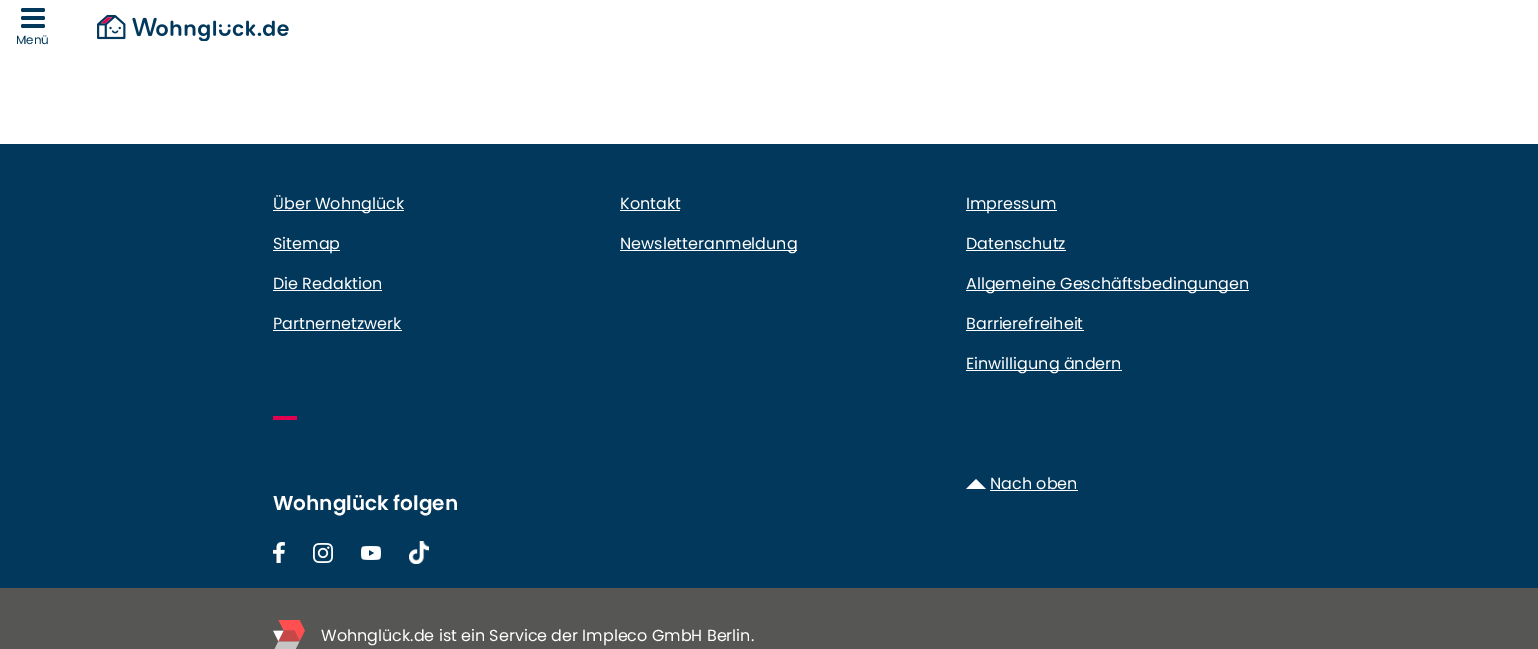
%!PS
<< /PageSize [1538 649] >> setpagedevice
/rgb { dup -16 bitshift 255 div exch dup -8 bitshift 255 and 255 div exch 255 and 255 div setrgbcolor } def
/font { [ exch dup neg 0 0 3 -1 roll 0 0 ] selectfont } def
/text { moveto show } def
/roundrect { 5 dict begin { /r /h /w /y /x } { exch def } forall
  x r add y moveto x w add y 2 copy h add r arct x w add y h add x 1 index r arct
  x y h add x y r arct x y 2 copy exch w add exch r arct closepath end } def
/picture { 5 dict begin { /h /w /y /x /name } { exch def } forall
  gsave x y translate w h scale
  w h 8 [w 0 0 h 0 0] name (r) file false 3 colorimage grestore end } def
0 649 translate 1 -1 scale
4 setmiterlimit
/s1 { /Poppins-Regular 12 font 16#02385C rgb } def
/s2 { /Poppins-Regular 16 font 16#FFFFFF rgb } def
/s3 { /Poppins-SemiBold 20 font 16#FFFFFF rgb } def
16#FFFFFF rgb
0 0 1538 649 rectfill
16#02385C rgb
21 8 24 4 2 roundrect fill
21 16 24 4 2 roundrect fill
21 24 24 4 2 roundrect fill
s1
(Menü) 16 44 text
(pic1.raw) 97 15 192 26 picture
0 144 1538 444 rectfill
16#FFFFFF rgb
273 210 131 1 rectfill
s2
(Über Wohnglück) 273 209 text
273 250 67 1 rectfill
(Sitemap) 273 249 text
(Die Redaktion) 273 289 text
273 290 109 1 rectfill
(Partnernetzwerk) 273 329 text
273 330 129 1 rectfill
(Kontakt) 620 209 text
620 210 60 1 rectfill
620 250 177 1 rectfill
(Newsletteranmeldung) 620 249 text
966 210 91 1 rectfill
(Impressum) 966 209 text
(Datenschutz) 966 249 text
966 250 100 1 rectfill
966 290 283 1 rectfill
(Allgemeine Geschäftsbedingungen) 966 289 text
(Barrierefreiheit) 966 329 text
966 330 118 1 rectfill
966 370 156 1 rectfill
(Einwilligung ändern) 966 369 text
16#E40051 rgb
273 416 24 4 rectfill
16#FFFFFF rgb
976 489 moveto 966 489 lineto 976 479 lineto 986 489 lineto closepath eofill
(Nach oben) 990 489 text
990 490 88 1 rectfill
s3
(Wohnglück folgen) 273 510 text
(pic2.raw) 273 542 12 21 picture
(pic3.raw) 313 543 20 20 picture
(pic4.raw) 361 546 20 14 picture
(pic5.raw) 409 541 20 23 picture
16#565655 rgb
0 588 1538 61 rectfill
(pic6.raw) 273 620 32 29 picture
s2
(Wohnglück.de ist ein Service der Impleco GmbH Berlin.) 321 641 text
showpage
